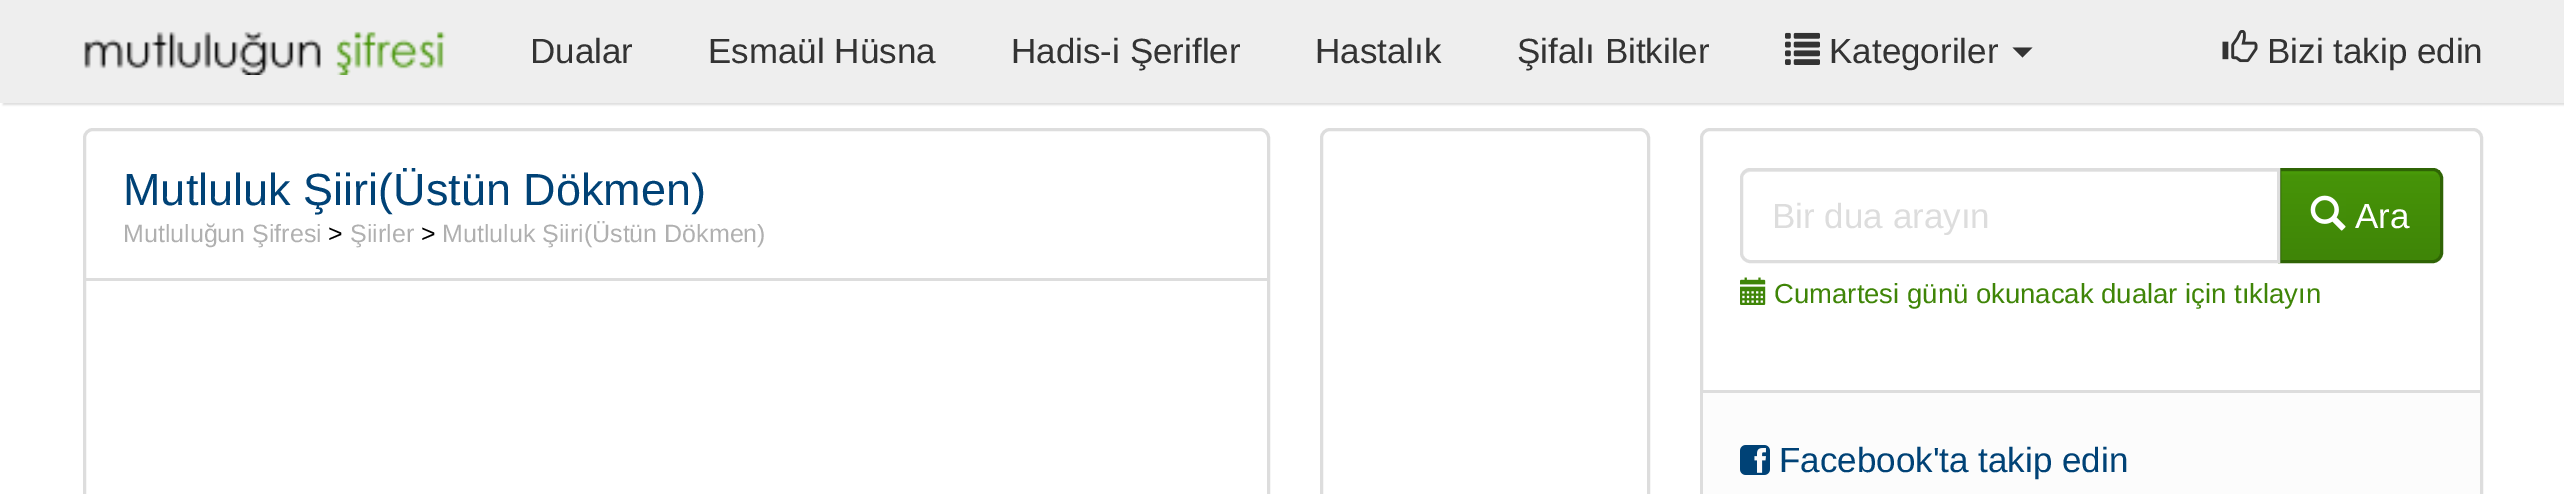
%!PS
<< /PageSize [2564 494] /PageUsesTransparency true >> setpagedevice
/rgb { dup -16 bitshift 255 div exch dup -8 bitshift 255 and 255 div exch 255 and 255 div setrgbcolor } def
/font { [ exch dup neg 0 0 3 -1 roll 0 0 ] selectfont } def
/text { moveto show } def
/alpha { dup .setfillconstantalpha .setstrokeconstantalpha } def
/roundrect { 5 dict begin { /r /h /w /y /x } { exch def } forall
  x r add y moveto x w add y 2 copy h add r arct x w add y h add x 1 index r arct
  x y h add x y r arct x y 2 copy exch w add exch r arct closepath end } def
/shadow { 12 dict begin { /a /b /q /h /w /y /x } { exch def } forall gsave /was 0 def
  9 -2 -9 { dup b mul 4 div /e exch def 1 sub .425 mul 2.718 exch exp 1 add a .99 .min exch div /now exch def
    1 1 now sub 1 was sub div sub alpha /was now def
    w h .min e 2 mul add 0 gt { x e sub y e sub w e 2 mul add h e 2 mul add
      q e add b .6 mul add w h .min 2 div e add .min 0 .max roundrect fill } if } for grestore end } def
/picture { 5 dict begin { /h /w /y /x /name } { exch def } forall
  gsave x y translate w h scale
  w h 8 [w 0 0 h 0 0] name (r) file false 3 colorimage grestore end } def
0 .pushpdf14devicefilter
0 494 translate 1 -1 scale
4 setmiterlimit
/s1 { /LiberationSans-Regular 35 font 16#333333 rgb } def
/s2 { /LiberationSans-Regular 45 font 16#004276 rgb } def
/s3 { /LiberationSans-Regular 25 font 16#B0B0B0 rgb } def
/s4 { /LiberationSans-Regular 25 font 16#000000 rgb } def
/s5 { /LiberationSans-Regular 35 font 16#DDDDDD rgb } def
/s6 { /LiberationSans-Regular 35 font 16#FFFFFF rgb } def
/s7 { /LiberationSans-Regular 27.5 font 16#3F8507 rgb } def
/s8 { /LiberationSans-Regular 35 font 16#004276 rgb } def
16#FFFFFF rgb
0 0 2564 494 rectfill
16#DDDDDD rgb
3 3 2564 102 0 1 1 shadow
16#EEEEEE rgb
0 0 2564 103 rectfill
(pic1.raw) 84 31 362 44 picture
s1
(Dualar) 530 63 text
(Esmaül Hüsna) 708 63 text
(Hadis-i Şerifler) 1011 63 text
(Hastalık) 1315 63 text
(Şifalı Bitkiler) 1517 63 text
(pic2.raw) 1785 32 35 33 picture
(Kategoriler) 1829 63 text
2012.5 47.5 moveto 2032.5 47.5 lineto 2022.5 57.5 lineto closepath fill
(pic3.raw) 2222 30 36 33 picture
(Bizi takip edin) 2267 63 text
16#DDDDDD rgb
3 setlinewidth
84.5 129.5 1184 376 8.5 roundrect stroke
gsave
123 168 1107 50 rectclip
s2
(Mutluluk Şiiri\(Üstün Dökmen\)) 123 205 text
grestore
s3
(Mutluluğun Şifresi) 123 242 text
s4
(>) 328 242 text
s3
(Şiirler) 350 242 text
s4
(>) 421 242 text
s3
(Mutluluk Şiiri\(Üstün Dökmen\)) 442 242 text
16#DDDDDD rgb
85 278 1183 3 rectfill
1321.5 129.5 327 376 8.5 roundrect stroke
1701.5 129.5 780 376 8.5 roundrect stroke
gsave 2281 170 moveto 2440 170 lineto 2440 260 lineto 2281 260 lineto closepath clip newpath
<< /ShadingType 2 /ColorSpace /DeviceRGB /Coords [2360 170 2360 260] /Extend [true true] /Function << /FunctionType 3 /Domain [0 1] /Functions [<< /FunctionType 2 /Domain [0 1] /C0 [0.302 0.639 0.035] /C1 [0.275 0.58 0.031] /N 1 >> << /FunctionType 2 /Domain [0 1] /C0 [0.275 0.58 0.031] /C1 [0.247 0.522 0.027] /N 1 >>] /Bounds [0.06] /Encode [0 1 0 1] >> >> shfill grestore
16#2F6405 rgb
2279.5 169.5 moveto 2433 169.5 lineto 2437.5 169.5 2441.5 173.5 2441.5 178 curveto 2441.5 253 lineto 2441.5 257.5 2437.5 261.5 2433 261.5 curveto 2279.5 261.5 lineto closepath stroke
16#FFFFFF rgb
1750 168 moveto 2280 168 lineto 2280 263 lineto 1750 263 lineto 1744.5 263 1740 258.5 1740 253 curveto 1740 178 lineto 1740 172.5 1744.5 168 1750 168 curveto closepath fill
16#ECECEC rgb
1750 172 moveto 2278 172 lineto 2278 170 lineto 1751 170 lineto 1747 170 1744 173 1743 176 curveto 1745 174 1747 172 1750 172 curveto closepath fill
16#DDDDDD rgb
1750 169.5 moveto 2278.5 169.5 lineto 2278.5 261.5 lineto 1750 261.5 lineto 1745.5 261.5 1741.5 257.5 1741.5 253 curveto 1741.5 178 lineto 1741.5 173.5 1745.5 169.5 1750 169.5 curveto closepath stroke
gsave
1773 195 475 40 rectclip
s5
(Bir dua arayın) 1772 228 text
grestore
(pic4.raw) 2310 195 36 36 picture
s6
(Ara) 2355 228 text
(pic5.raw) 1740 277 26 28 picture
s7
(Cumartesi günü okunacak dualar için tıklayın) 1774 303 text
16#FCFCFC rgb
1703 393 777 101 rectfill
16#DDDDDD rgb
1703 390 777 3 rectfill
(pic6.raw) 1740 445 30 30 picture
s8
(Facebook'ta takip edin) 1779 472 text
.poppdf14devicefilter showpage
